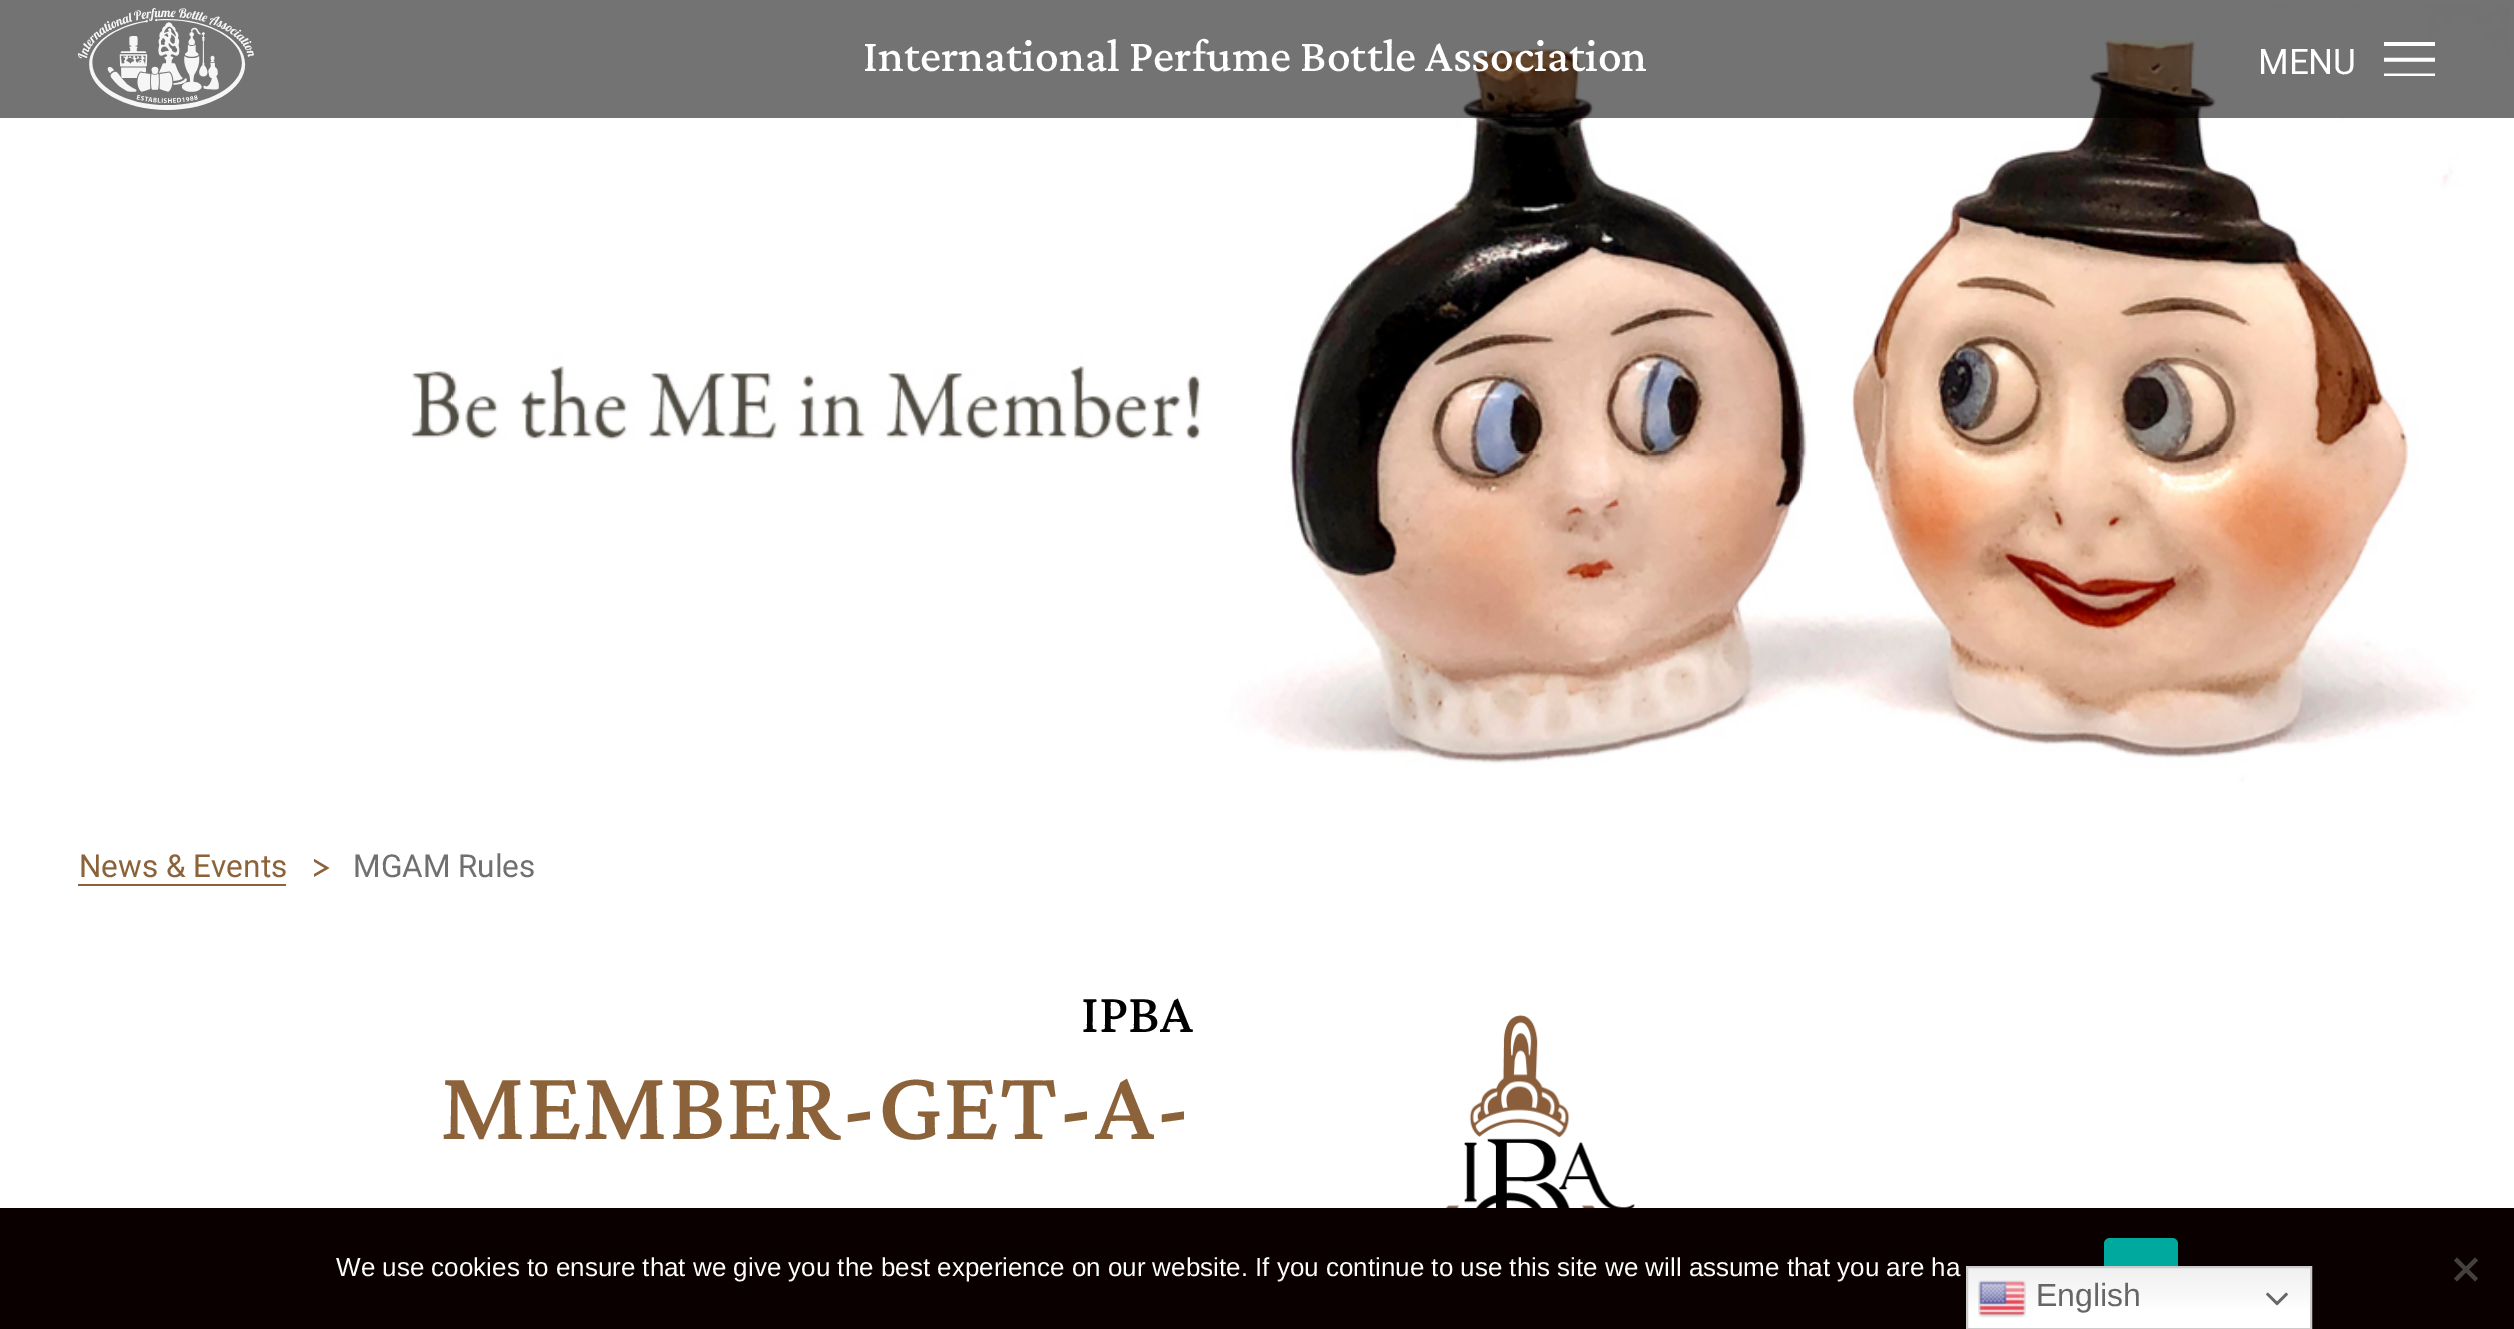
%!PS
<< /PageSize [2514 1329] /PageUsesTransparency true >> setpagedevice
/rgb { dup -16 bitshift 255 div exch dup -8 bitshift 255 and 255 div exch 255 and 255 div setrgbcolor } def
/font { [ exch dup neg 0 0 3 -1 roll 0 0 ] selectfont } def
/text { moveto show } def
/alpha { dup .setfillconstantalpha .setstrokeconstantalpha } def
/roundrect { 5 dict begin { /r /h /w /y /x } { exch def } forall
  x r add y moveto x w add y 2 copy h add r arct x w add y h add x 1 index r arct
  x y h add x y r arct x y 2 copy exch w add exch r arct closepath end } def
/picture { 5 dict begin { /h /w /y /x /name } { exch def } forall
  gsave x y translate w h scale
  w h 8 [w 0 0 h 0 0] name (r) file false 3 colorimage grestore end } def
0 .pushpdf14devicefilter
0 1329 translate 1 -1 scale
4 setmiterlimit
/s1 { /Lateef-Regular 58.9 font 16#FFFFFF rgb } def
/s2 { /Roboto-Regular 35 font 16#FFFFFF rgb } def
/s3 { /Roboto-Regular 31.5 font 16#8B6239 rgb } def
/s4 { /Roboto-Regular 31.5 font 16#717070 rgb } def
/s5 { /Lateef-Regular 71 font 16#000000 rgb } def
/s6 { /Lateef-Regular 127.5 font 16#8B6239 rgb } def
/s7 { /LiberationSans-Regular 26 font 16#FFFFFF rgb } def
/s8 { /LiberationSans-Regular 32 font 16#666666 rgb } def
16#FFFFFF rgb
0 0 2514 1329 rectfill
(pic1.raw) 410 5 2100 777 picture
0.55 alpha
16#000000 rgb
0 0 2514 118 rectfill
1 alpha
(pic2.raw) 78 8 176 102 picture
s1
(International Perfume Bottle Association) 863 71 text
s2
(MENU) 2258 74 text
(pic3.raw) 2384 42 51 34 picture
s3
(News & Events) 79 877 text
78 884 208 2 rectfill
(pic4.raw) 314 858 16 19 picture
s4
(MGAM Rules) 353 877 text
s5
(IPBA) 1081 1032 text
s6
(MEMBER-GET-A-) 440 1139 text
(pic5.raw) 1433 1015 202 193 picture
16#0A0000 rgb
0 1208 2514 121 rectfill
s7
(We use cookies to ensure that we give you the best experience on our website. If you continue to use this site we will assume that you are ha) 336 1276 text
16#00A99D rgb
2104 1238 74 60 6 roundrect fill
16#454040 rgb
2475 1257.5 moveto 2478 1260.5 lineto 2457 1281.5 lineto 2454 1278.5 lineto closepath fill
2454 1260.5 moveto 2457 1257.5 lineto 2478 1278.5 lineto 2475 1281.5 lineto closepath fill
gsave 1968 1268 moveto 2310 1268 lineto 2310 1328 lineto 1968 1328 lineto closepath clip newpath
<< /ShadingType 2 /ColorSpace /DeviceRGB /Coords [2139 1266 2139 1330] /Extend [true true] /Function << /FunctionType 3 /Domain [0 1] /Functions [<< /FunctionType 2 /Domain [0 1] /C0 [0.937 0.937 0.937] /C1 [1 1 1] /N 1 >> << /FunctionType 2 /Domain [0 1] /C0 [1 1 1] /C1 [1 1 1] /N 1 >>] /Bounds [0.7] /Encode [0 1 0 1] >> >> shfill grestore
16#CCCCCC rgb
2 setlinewidth
1967 1267 344 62 rectstroke
(pic6.raw) 1978 1280 48 38 picture
s8
(English) 2036 1306 text
(pic7.raw) 2266 1292 22 14 picture
.poppdf14devicefilter showpage
